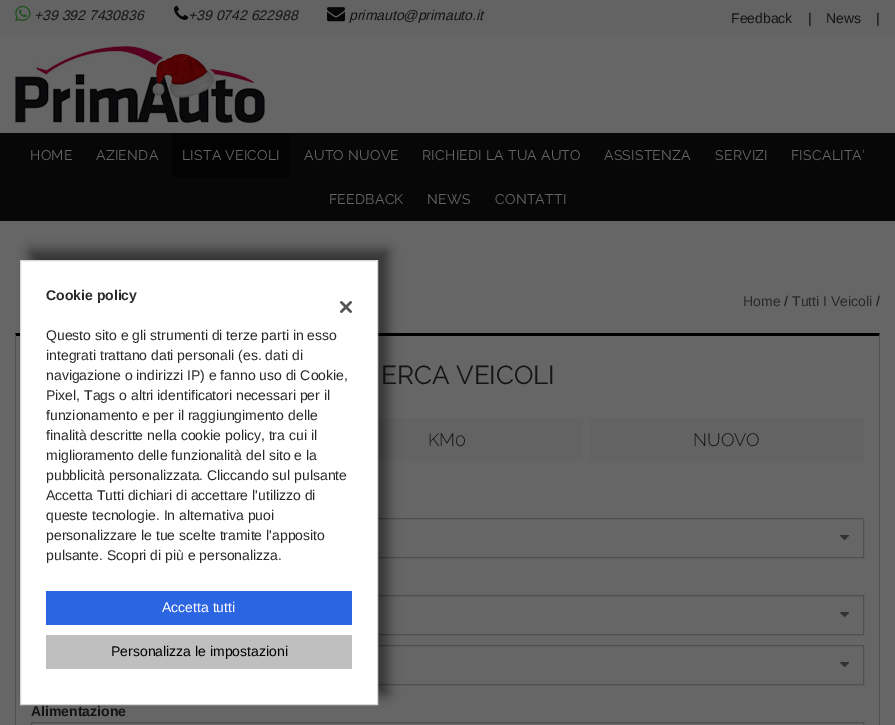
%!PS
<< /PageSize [895 725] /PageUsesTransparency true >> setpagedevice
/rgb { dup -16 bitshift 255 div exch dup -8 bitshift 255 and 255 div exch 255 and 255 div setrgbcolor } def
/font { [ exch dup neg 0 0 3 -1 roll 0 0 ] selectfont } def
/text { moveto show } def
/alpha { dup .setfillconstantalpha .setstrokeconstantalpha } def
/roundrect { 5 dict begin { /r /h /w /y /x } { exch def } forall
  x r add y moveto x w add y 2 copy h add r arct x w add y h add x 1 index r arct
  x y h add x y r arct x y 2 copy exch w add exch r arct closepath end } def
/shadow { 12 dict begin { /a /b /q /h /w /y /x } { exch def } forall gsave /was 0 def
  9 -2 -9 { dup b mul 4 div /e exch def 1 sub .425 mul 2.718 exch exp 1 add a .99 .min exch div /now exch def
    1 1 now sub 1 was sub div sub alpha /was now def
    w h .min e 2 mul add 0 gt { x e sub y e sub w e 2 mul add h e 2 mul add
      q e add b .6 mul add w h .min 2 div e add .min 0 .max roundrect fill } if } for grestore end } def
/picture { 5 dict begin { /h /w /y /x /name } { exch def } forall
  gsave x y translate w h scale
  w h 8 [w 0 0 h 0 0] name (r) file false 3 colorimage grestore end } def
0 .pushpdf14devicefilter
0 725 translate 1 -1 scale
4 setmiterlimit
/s1 { /Arimo-Italic 14 font 16#141414 rgb } def
/s2 { /Arimo-Regular 14 font 16#141414 rgb } def
/s3 { /Arimo-Regular 14 font 16#292929 rgb } def
/s4 { /Raleway-Regular 26 font 16#141414 rgb } def
/s5 { /Raleway-Light 18 font 16#141414 rgb } def
/s6 { /Arimo-Bold 14 font 16#141414 rgb } def
/s7 { /Arimo-Bold 14 font 16#292929 rgb } def
/s8 { /Arimo-Regular 14 font 16#FFFFFF rgb } def
/s9 { /Arimo-Regular 14 font 16#000000 rgb } def
16#666666 rgb
0 0 895 725 rectfill
16#636363 rgb
0 0 895 36 rectfill
(pic1.raw) 15 5 16 17 picture
s1
(+39 392 7430836) 34 20 text
(pic2.raw) 174 5 15 15 picture
(+39 0742 622988) 188 20 text
(pic3.raw) 327 7 18 15 picture
(primauto@primauto.it) 349 20 text
s2
(Feedback) 731 23 text
(|) 808 23 text
(News) 826 23 text
(|) 876 23 text
(pic4.raw) 15 46 250 77 picture
16#070707 rgb
0 133 895 88 rectfill
/Raleway-Regular 14 font
16#666666 rgb
30 160 moveto 0.25 0 (HOME) ashow
96 160 moveto 0.25 0 (AZIENDA) ashow
16#030303 rgb
172 133 118 44 rectfill
16#666666 rgb
182 160 moveto 0.25 0 (LISTA VEICOLI) ashow
304 160 moveto 0.25 0 (AUTO NUOVE) ashow
422 160 moveto 0.25 0 (RICHIEDI LA TUA AUTO) ashow
604 160 moveto 0.25 0 (ASSISTENZA) ashow
715 160 moveto 0.25 0 (SERVIZI) ashow
791 160 moveto 0.25 0 (FISCALITA’) ashow
329 204 moveto 0.25 0 (FEEDBACK) ashow
427 204 moveto 0.25 0 (NEWS) ashow
495 204 moveto 0.25 0 (CONTATTI) ashow
s3
(Home) 743 306 text
s2
(/) 784 306 text
s3
(Tutti I Veicoli) 792 306 text
s2
(/) 876 306 text
16#000000 rgb
15 333 moveto 880 333 lineto 879 336 lineto 16 336 lineto closepath fill
16#4F4F4F rgb
880 333 moveto 880 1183 lineto 879 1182 lineto 879 336 lineto closepath fill
15 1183 moveto 15 333 lineto 16 336 lineto 16 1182 lineto closepath fill
s4
(ERCA VEICOLI) 381 384 text
16#636363 rgb
378 418 205 43 rectfill
s5
(KM0) 428 446 text
16#636363 rgb
589 418 275 43 rectfill
s5
(NUOVO) 693 446 text
16#4F4F4F rgb
31.5 518.5 832 39 rectstroke
(pic5.raw) 840 535 10 6 picture
31.5 595.5 832 39 rectstroke
(pic5.raw) 840 612 10 6 picture
31.5 645.5 832 39 rectstroke
(pic5.raw) 840 662 10 6 picture
s6
(Alimentazione) 31 716 text
16#4F4F4F rgb
31.5 722.5 832 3 rectstroke
16#000000 rgb
30 250 358 445 0 6 0.5 shadow
16#FFFFFF rgb
20.5 260.5 moveto 377.5 260.5 lineto 377.5 704.5 lineto 20.5 704.5 lineto closepath gsave fill grestore
16#D6D6D6 rgb
stroke
s7
(Cookie policy) 46 300 text
s3
(Questo sito e gli strumenti di terze parti in esso) 46 340 text
(integrati trattano dati personali \(es. dati di) 46 360 text
(navigazione o indirizzi IP\) e fanno uso di Cookie,) 46 380 text
(Pixel, Tags o altri identificatori necessari per il) 46 400 text
(funzionamento e per il raggiungimento delle) 46 420 text
(finalità descritte nella cookie policy, tra cui il) 46 440 text
(miglioramento delle funzionalità del sito e la) 46 460 text
(pubblicità personalizzata. Cliccando sul pulsante) 46 480 text
(Accetta Tutti dichiari di accettare l'utilizzo di) 46 500 text
(queste tecnologie. In alternativa puoi) 46 520 text
(personalizzare le tue scelte tramite l'apposito) 46 540 text
(pulsante. Scopri di più e personalizza.) 46 560 text
(pic6.raw) 340 301 12 12 picture
16#2C65E1 rgb
46 591 306 34 rectfill
s8
(Accetta tutti) 162 612 text
16#BFBFBF rgb
46 635 306 34 rectfill
s9
(Personalizza le impostazioni) 111 656 text
.poppdf14devicefilter showpage
